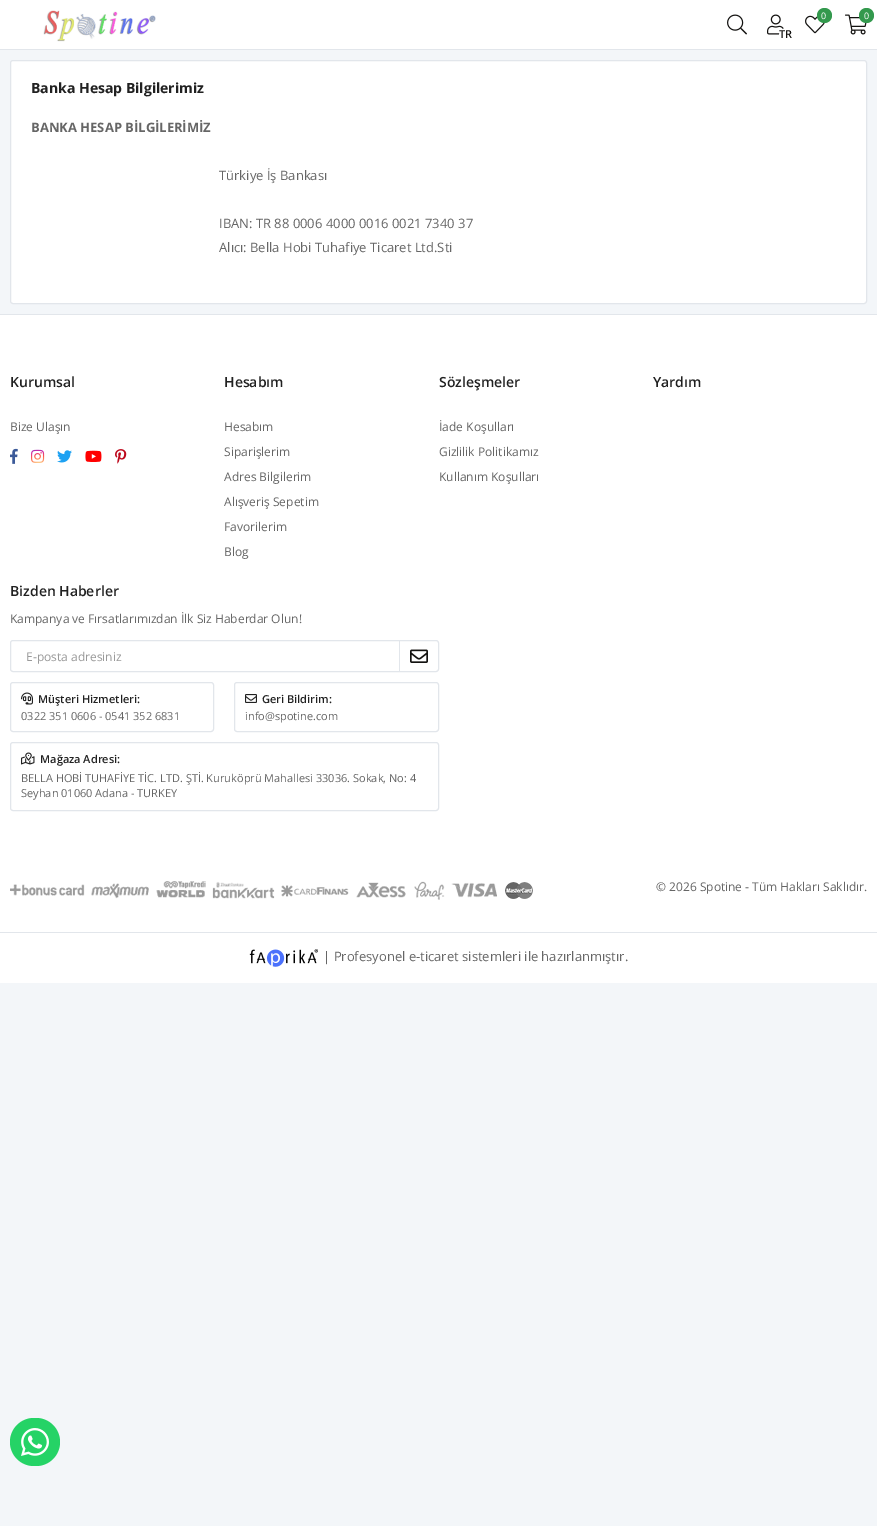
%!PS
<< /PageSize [877 1526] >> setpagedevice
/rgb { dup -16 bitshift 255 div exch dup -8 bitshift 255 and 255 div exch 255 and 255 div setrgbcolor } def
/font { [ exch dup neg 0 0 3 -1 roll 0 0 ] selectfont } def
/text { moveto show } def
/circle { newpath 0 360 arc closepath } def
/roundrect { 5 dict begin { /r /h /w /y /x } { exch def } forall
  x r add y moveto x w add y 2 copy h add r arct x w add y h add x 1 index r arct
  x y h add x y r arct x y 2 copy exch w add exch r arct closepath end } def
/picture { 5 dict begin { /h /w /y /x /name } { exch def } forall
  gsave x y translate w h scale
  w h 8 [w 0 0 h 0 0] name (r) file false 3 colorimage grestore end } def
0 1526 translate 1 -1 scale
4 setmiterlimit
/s1 { /OpenSans-SemiBold 11 font 16#131210 rgb } def
/s2 { /OpenSans-Regular 9 font 16#FFFFFF rgb } def
/s3 { /OpenSans-Bold 14 font 16#212121 rgb } def
/s4 { /OpenSans-Bold 13 font 16#666666 rgb } def
/s5 { /OpenSans-Regular 13 font 16#666666 rgb } def
/s6 { /OpenSans-SemiBold 14 font 16#212121 rgb } def
/s7 { /OpenSans-Regular 12 font 16#666666 rgb } def
/s8 { /OpenSans-Regular 12 font 16#9A9A9A rgb } def
/s9 { /OpenSans-SemiBold 11 font 16#212121 rgb } def
/s10 { /OpenSans-Regular 11 font 16#666666 rgb } def
16#F3F6F9 rgb
0 0 877 1526 rectfill
16#FFFFFF rgb
0 0 877 49 rectfill
16#E2E6EB rgb
0 49 877 1 rectfill
(pic1.raw) 43 10 113 32 picture
(pic2.raw) 727 14 20 21 picture
(pic3.raw) 767 14 17 21 picture
16#FFFFFF rgb
786.5 35.5 7.5 circle fill
s1
(TR) 779 38 text
(pic4.raw) 805 15 20 19 picture
16#33994D rgb
824.5 15.5 7.5 circle fill
s2
(0) 821 19 text
(pic5.raw) 845 14 22 21 picture
16#33994D rgb
866.5 15.5 7.5 circle fill
s2
(0) 864 19 text
10.5 60.5 856 243 2.5 roundrect gsave fill grestore
16#E2E6EB rgb
stroke
s3
(Banka Hesap Bilgilerimiz) 31 93 text
s4
(BANKA HESAP BİLGİLERİMİZ) 31 132 text
s5
(Türkiye İş Bankası) 219 180 text
(IBAN: TR 88 0006 4000 0016 0021 7340 37) 219 228 text
(Alıcı: Bella Hobi Tuhafiye Ticaret Ltd.Sti) 219 252 text
16#FFFFFF rgb
0 315 877 617 rectfill
16#E2E6EB rgb
0 314 877 1 rectfill
s6
(Kurumsal) 10 387 text
s7
(Bize Ulaşın) 10 431 text
(pic6.raw) 10 448 8 16 picture
(pic7.raw) 31 449 14 14 picture
(pic8.raw) 57 450 15 13 picture
(pic9.raw) 85 450 17 12 picture
(pic10.raw) 115 449 12 15 picture
s6
(Hesabım) 224 387 text
s7
(Hesabım) 224 431 text
(Siparişlerim) 224 456 text
(Adres Bilgilerim) 224 481 text
(Alışveriş Sepetim) 224 506 text
(Favorilerim) 224 531 text
(Blog) 224 556 text
s6
(Sözleşmeler) 439 387 text
s7
(İade Koşulları) 439 431 text
(Gizlilik Politikamız) 439 456 text
(Kullanım Koşulları) 439 481 text
s6
(Yardım) 653 387 text
(Bizden Haberler) 10 596 text
s7
(Kampanya ve Fırsatlarımızdan İlk Siz Haberdar Olun!) 10 623 text
16#E2E6EB rgb
10.5 640.5 428 31 2.5 roundrect stroke
s8
(E-posta adresiniz) 26 661 text
16#E2E6EB rgb
399 641 1 30 rectfill
(pic11.raw) 410 649 18 14 picture
10.5 682.5 203 49 2.5 roundrect stroke
(pic12.raw) 21 692 12 13 picture
s9
(Müşteri Hizmetleri:) 38 703 text
s10
(0322 351 0606 - 0541 352 6831) 21 720 text
16#E2E6EB rgb
234.5 682.5 204 49 2.5 roundrect stroke
(pic13.raw) 245 694 12 9 picture
s9
(Geri Bildirim:) 262 703 text
s10
(info@spotine.com) 245 720 text
16#E2E6EB rgb
10.5 742.5 428 68 2.5 roundrect stroke
(pic14.raw) 21 752 14 13 picture
s9
(Mağaza Adresi:) 40 763 text
s10
(BELLA HOBİ TUHAFİYE TİC. LTD. ŞTİ. Kuruköprü Mahallesi 33036. Sokak, No: 4) 21 782 text
(Seyhan 01060 Adana - TURKEY) 21 797 text
(pic15.raw) 10 881 523 19 picture
s7
(© 2026 Spotine - Tüm Hakları Saklıdır.) 656 891 text
16#FFFFFF rgb
0 933 877 50 rectfill
16#E2E6EB rgb
0 932 877 1 rectfill
(pic16.raw) 249 949 69 18 picture
s5
(| Profesyonel e-ticaret sistemleri ile hazırlanmıştır.) 323 961 text
16#25D366 rgb
10 1418 50 48 24 roundrect fill
(pic17.raw) 21 1428 28 28 picture
showpage
